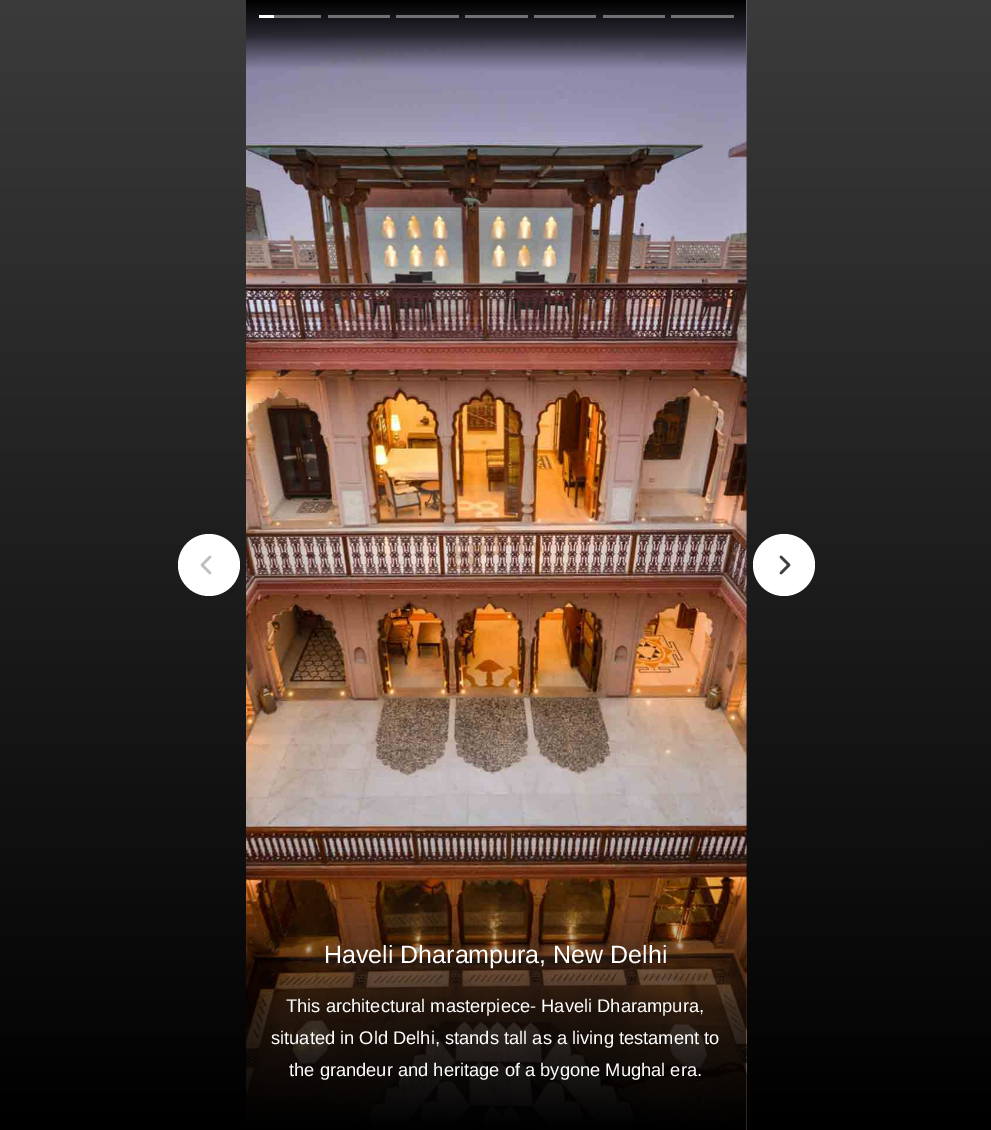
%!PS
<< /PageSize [991 1130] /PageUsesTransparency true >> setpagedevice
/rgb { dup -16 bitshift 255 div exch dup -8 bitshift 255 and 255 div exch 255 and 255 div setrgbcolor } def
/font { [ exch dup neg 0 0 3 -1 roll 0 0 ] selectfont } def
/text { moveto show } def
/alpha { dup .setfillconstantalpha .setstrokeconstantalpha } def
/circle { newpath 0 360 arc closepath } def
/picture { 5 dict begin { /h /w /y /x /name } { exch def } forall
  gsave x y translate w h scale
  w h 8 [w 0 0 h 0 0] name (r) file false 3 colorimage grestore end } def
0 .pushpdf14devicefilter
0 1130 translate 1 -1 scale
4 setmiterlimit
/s1 { /LiberationSans-Regular 25 font 16#FFFFFF rgb } def
/s2 { /LiberationSans-Regular 18.3 font 16#FFFFFF rgb } def
16#FFFFFF rgb
0 0 991 1130 rectfill
gsave 0 0 moveto 991 0 lineto 991 1130 lineto 0 1130 lineto closepath clip newpath
<< /ShadingType 2 /ColorSpace /DeviceRGB /Coords [496 0 496 1130] /Extend [true true] /Function << /FunctionType 2 /Domain [0 1] /C0 [0.231 0.231 0.231] /C1 [0 0 0] /N 1 >> >> shfill grestore
(pic1.raw) 246 0 501 1130 picture
0.4 alpha
274 15 47 3 rectfill
1 alpha
259 15 15 3 rectfill
0.4 alpha
328 15 62 3 rectfill
396 15 63 3 rectfill
465 15 63 3 rectfill
534 15 62 3 rectfill
603 15 62 3 rectfill
671 15 63 3 rectfill
1 alpha
209 565 31 circle fill
16#BFBFBF rgb
2.5 setlinewidth
1 setlinecap
1 setlinejoin
210 557 moveto 202 565 lineto 210 573 moveto 202 565 lineto stroke
16#FFFFFF rgb
784 565 31 circle fill
16#404040 rgb
781 557 moveto 789 565 lineto 781 573 moveto 789 565 lineto stroke
s1
(Haveli Dharampura, New Delhi) 324 963 text
s2
(This architectural masterpiece- Haveli Dharampura,) 286 1012 text
(situated in Old Delhi, stands tall as a living testament to) 271 1044 text
(the grandeur and heritage of a bygone Mughal era.) 289 1076 text
.poppdf14devicefilter showpage
